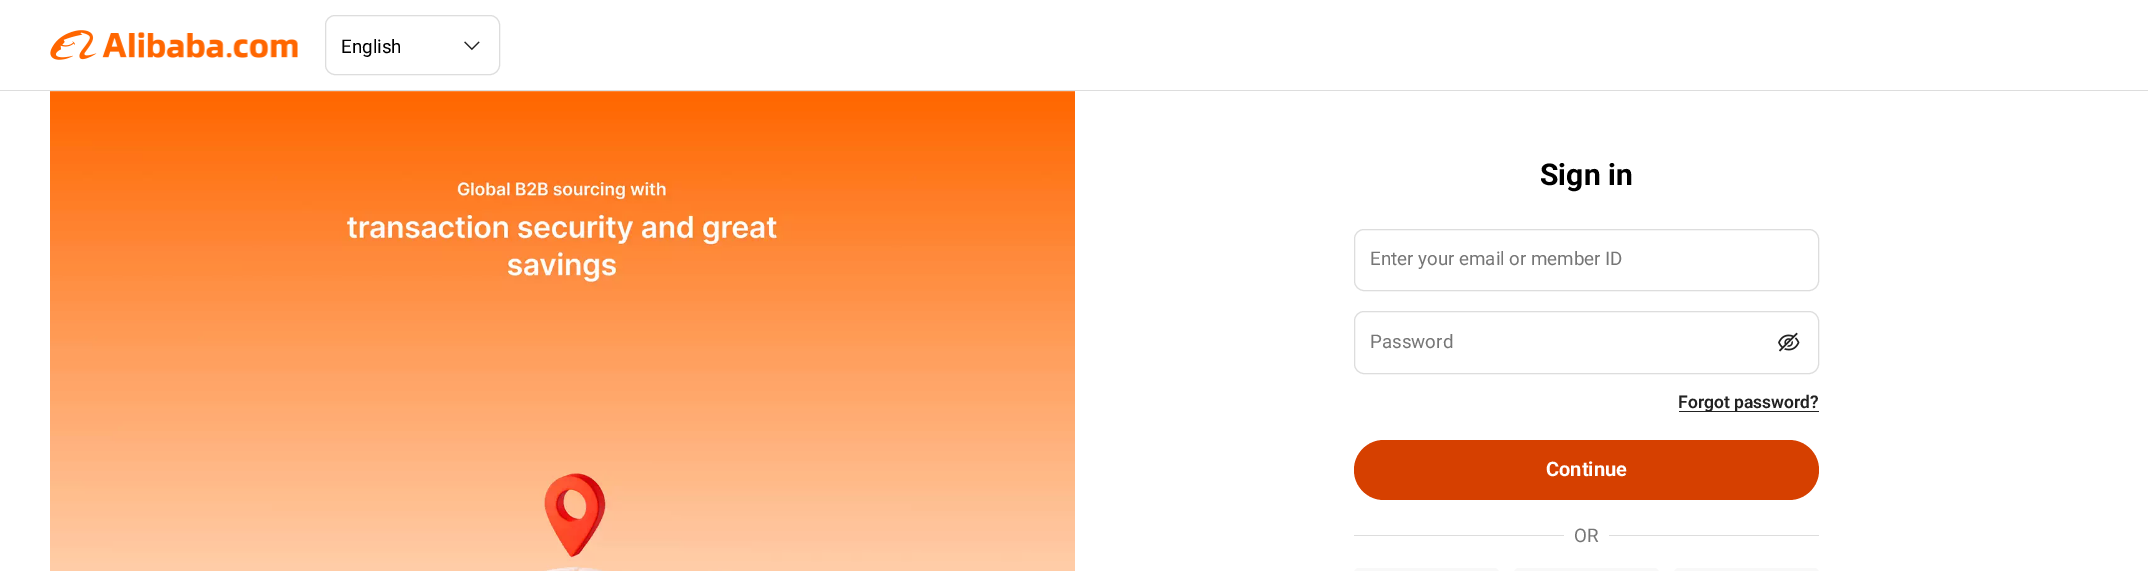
%!PS
<< /PageSize [2148 571] >> setpagedevice
/rgb { dup -16 bitshift 255 div exch dup -8 bitshift 255 and 255 div exch 255 and 255 div setrgbcolor } def
/font { [ exch dup neg 0 0 3 -1 roll 0 0 ] selectfont } def
/text { moveto show } def
/roundrect { 5 dict begin { /r /h /w /y /x } { exch def } forall
  x r add y moveto x w add y 2 copy h add r arct x w add y h add x 1 index r arct
  x y h add x y r arct x y 2 copy exch w add exch r arct closepath end } def
/picture { 5 dict begin { /h /w /y /x /name } { exch def } forall
  gsave x y translate w h scale
  w h 8 [w 0 0 h 0 0] name (r) file false 3 colorimage grestore end } def
0 571 translate 1 -1 scale
4 setmiterlimit
/s1 { /Roboto-Regular 18.75 font 16#000000 rgb } def
/s2 { /Roboto-Bold 30 font 16#000000 rgb } def
/s3 { /Roboto-Regular 18.75 font 16#767676 rgb } def
/s4 { /Roboto-SemiBold 17.5 font 16#222222 rgb } def
/s5 { /Roboto-Bold 20 font 16#FFFFFF rgb } def
16#FFFFFF rgb
0 0 2148 571 rectfill
(pic1.raw) 50 30 248 30 picture
16#DDDDDD rgb
325.5 15.5 174 59 9.5 roundrect stroke
s1
(English) 341 53 text
(pic2.raw) 464 41 16 10 picture
16#DDDDDD rgb
0 90 2148 1 rectfill
(pic3.raw) 50 91 1025 1 picture
(pic4.raw) 50 91 1025 480 picture
s2
(Sign in) 1540 185 text
16#DDDDDD rgb
1354.5 229.5 464 61 9.5 roundrect stroke
s3
(Enter your email or member ID) 1370 265 text
16#DDDDDD rgb
1354.5 311.5 464 62 9.5 roundrect stroke
s3
(Password) 1370 348 text
(pic5.raw) 1778 332 22 20 picture
16#222222 rgb
1679 411 140 1 rectfill
s4
(Forgot password?) 1678 408 text
16#D64000 rgb
1354 440 465 60 30 roundrect fill
s5
(Continue) 1546 476 text
16#DDDDDD rgb
1354 535 465 1 rectfill
16#FFFFFF rgb
1564 535 45 1 rectfill
s3
(OR) 1574 542 text
16#F8F8F8 rgb
1354 568 145 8 5 roundrect fill
1514 568 145 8 5 roundrect fill
1674 568 145 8 5 roundrect fill
showpage
